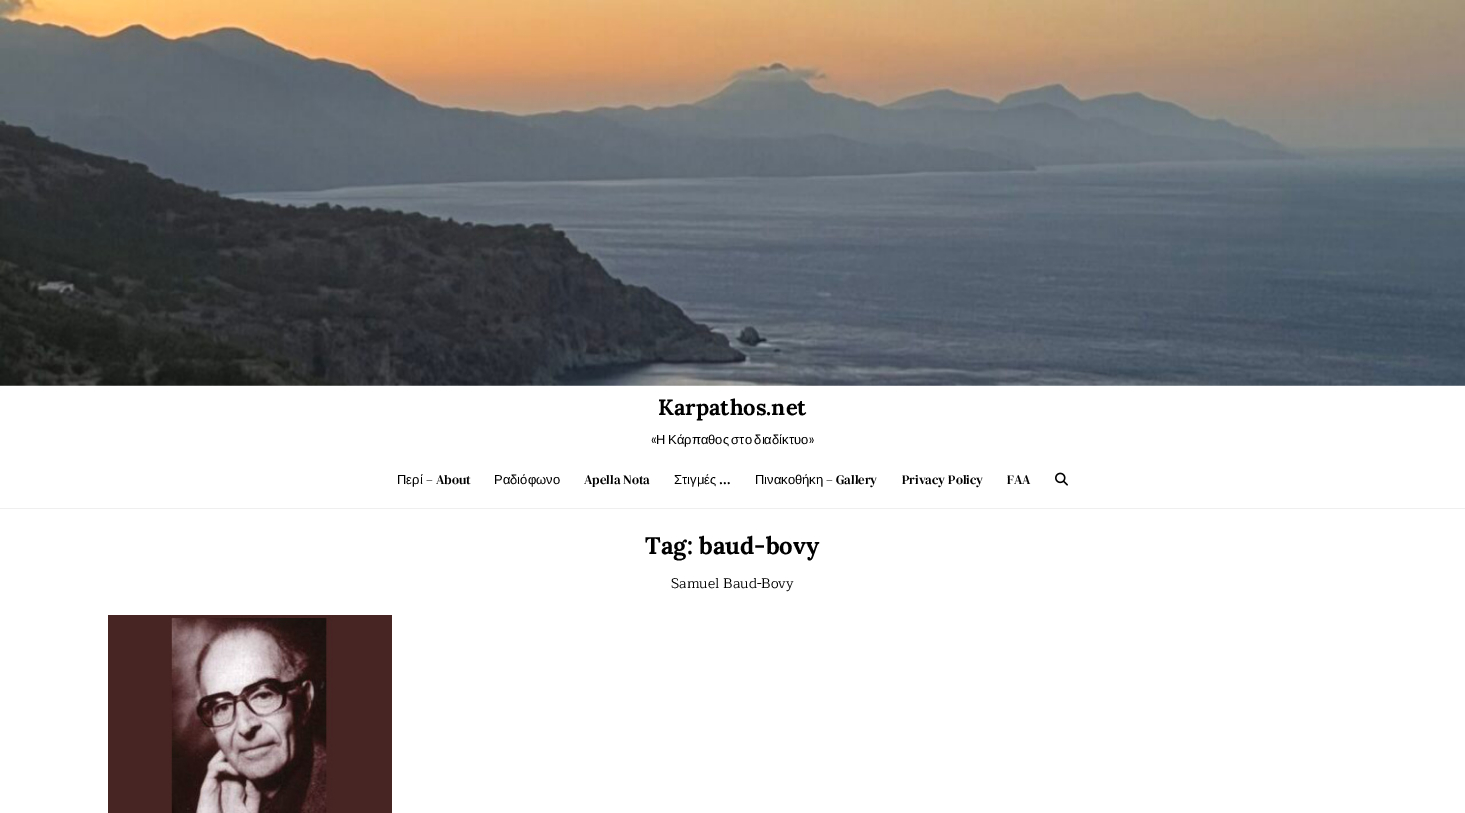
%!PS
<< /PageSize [1465 813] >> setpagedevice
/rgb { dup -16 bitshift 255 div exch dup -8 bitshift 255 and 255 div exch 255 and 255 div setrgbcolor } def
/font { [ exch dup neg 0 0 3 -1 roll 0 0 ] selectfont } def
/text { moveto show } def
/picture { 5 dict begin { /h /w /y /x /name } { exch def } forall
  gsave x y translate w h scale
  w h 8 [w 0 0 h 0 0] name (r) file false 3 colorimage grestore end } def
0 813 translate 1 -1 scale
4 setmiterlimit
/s1 { /Lora-Bold 22 font 16#000000 rgb } def
/s2 { /EncodeSansCondensed-Regular 13 font 16#000000 rgb } def
/s3 { /LiberationSans-Regular 13 font 16#000000 rgb } def
/s4 { /DMSerifText-Regular 13 font 16#000000 rgb } def
/s5 { /Lora-Bold 24 font 16#000000 rgb } def
/s6 { /Maitree-Regular 14 font 16#000000 rgb } def
16#FFFFFF rgb
0 0 1465 813 rectfill
(pic1.raw) 0 0 1465 386 picture
16#EFEFEF rgb
0 508 1465 1 rectfill
s1
(Karpathos.net) 658 415 text
s2
(«) 651 444 text
/LiberationSans-Regular 13 font
656 444 moveto -1 0 32 (Η Κάρπαθος στο διαδίκτυο) widthshow
s2
(») 809 444 text
s3
(Περί) 397 484 text
s4
(– About) 426 484 text
s3
(Ραδιόφωνο) 494 484 text
s4
(Apella Nota) 584 484 text
s3
(Στιγμές) 674 484 text
s4
(…) 719 484 text
s3
(Πινακοθήκη) 755 484 text
s4
(– Gallery) 826 484 text
(Privacy Policy) 902 484 text
(FAA) 1007 484 text
(pic2.raw) 1055 472 13 14 picture
s5
(Tag: baud-bovy) 645 554 text
s6
(Samuel Baud-Bovy) 671 588 text
(pic3.raw) 108 615 284 198 picture
showpage
